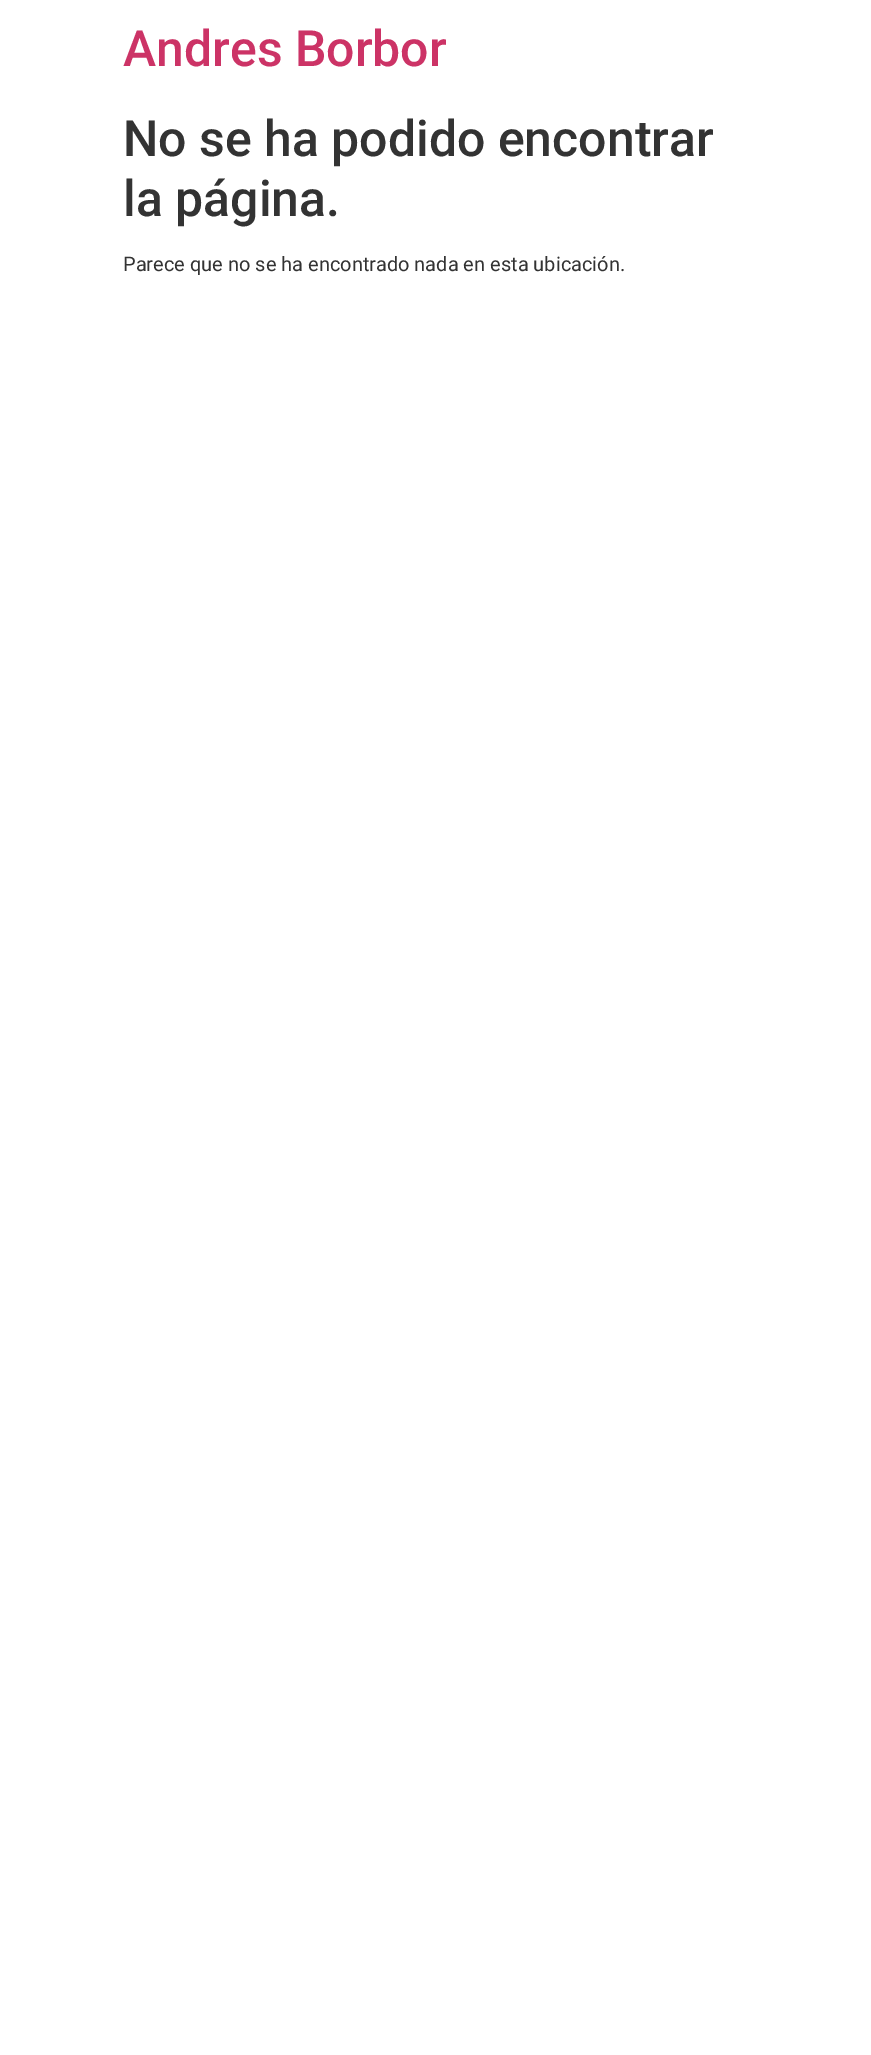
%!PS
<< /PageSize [871 2055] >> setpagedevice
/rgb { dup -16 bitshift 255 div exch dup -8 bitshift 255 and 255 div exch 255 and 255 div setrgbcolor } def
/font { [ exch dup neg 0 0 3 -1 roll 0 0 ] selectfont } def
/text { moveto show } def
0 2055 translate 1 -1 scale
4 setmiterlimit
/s1 { /Roboto-Medium 50 font 16#CC3366 rgb } def
/s2 { /Roboto-Medium 50 font 16#333333 rgb } def
/s3 { /Roboto-Regular 20 font 16#333333 rgb } def
16#FFFFFF rgb
0 0 871 2055 rectfill
s1
(Andres Borbor) 123 66 text
s2
(No se ha podido encontrar) 123 156 text
(la página.) 123 216 text
s3
(Parece que no se ha encontrado nada en esta ubicación.) 123 271 text
showpage
